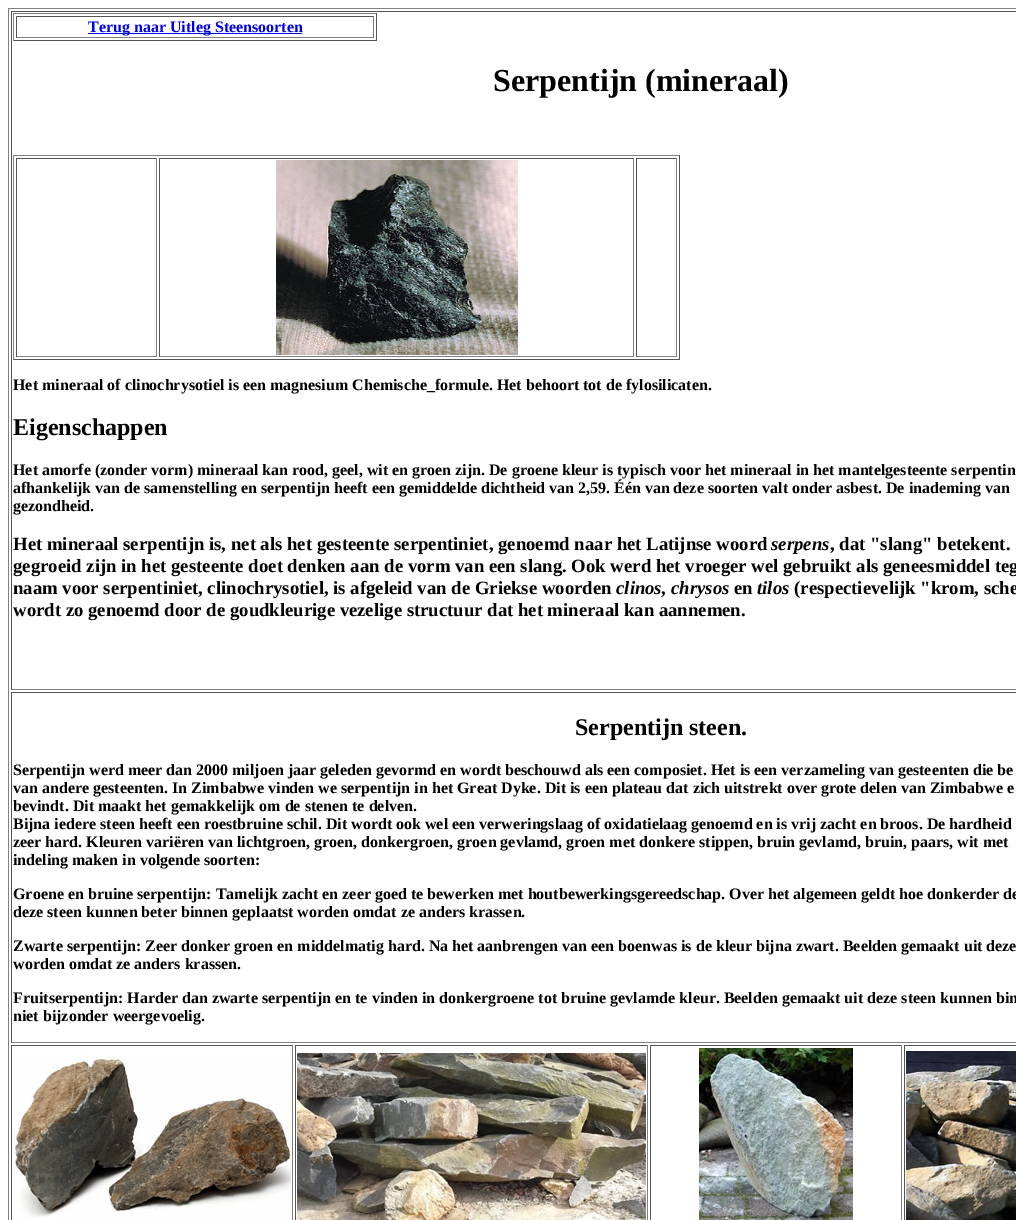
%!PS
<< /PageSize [1016 1220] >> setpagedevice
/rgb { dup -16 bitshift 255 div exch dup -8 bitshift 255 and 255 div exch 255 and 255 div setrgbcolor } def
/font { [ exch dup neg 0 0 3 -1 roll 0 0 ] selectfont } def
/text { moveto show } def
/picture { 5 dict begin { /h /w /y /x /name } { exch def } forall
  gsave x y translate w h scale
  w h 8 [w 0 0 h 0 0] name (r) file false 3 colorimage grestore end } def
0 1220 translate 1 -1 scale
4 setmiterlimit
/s1 { /LiberationSerif-Bold 16 font 16#0000EE rgb } def
/s2 { /LiberationSerif-Bold 32 font 16#000000 rgb } def
/s3 { /LiberationSerif-Bold 16 font 16#000000 rgb } def
/s4 { /LiberationSerif-Bold 24 font 16#000000 rgb } def
/s5 { /LiberationSerif-Bold 18.72 font 16#000000 rgb } def
/s6 { /LiberationSerif-BoldItalic 18.72 font 16#000000 rgb } def
16#FFFFFF rgb
0 0 1016 1220 rectfill
16#808080 rgb
8 8 1008 1 rectfill
8 8 1 1212 rectfill
16#555555 rgb
11 11 1005 1 rectfill
16#808080 rgb
11 689 1005 1 rectfill
16#555555 rgb
11 11 1 679 rectfill
16#808080 rgb
13 13 364 1 rectfill
16#555555 rgb
376 13 1 28 rectfill
13 40 364 1 rectfill
16#808080 rgb
13 13 1 28 rectfill
16#555555 rgb
16 16 358 1 rectfill
16#808080 rgb
373 16 1 22 rectfill
16 37 358 1 rectfill
16#555555 rgb
16 16 1 22 rectfill
16#0000EE rgb
88 33 214 1 rectfill
s1
(Terug naar Uitleg Steensoorten) 88 32 text
s2
(Serpentijn \(mineraal\)) 493 91 text
16#808080 rgb
13 155 667 1 rectfill
16#555555 rgb
679 155 1 205 rectfill
13 359 667 1 rectfill
16#808080 rgb
13 155 1 205 rectfill
16#555555 rgb
16 158 141 1 rectfill
16#808080 rgb
156 158 1 199 rectfill
16 356 141 1 rectfill
16#555555 rgb
16 158 1 199 rectfill
159 158 475 1 rectfill
16#808080 rgb
633 158 1 199 rectfill
159 356 475 1 rectfill
16#555555 rgb
159 158 1 199 rectfill
(pic1.raw) 276 160 242 195 picture
636 158 41 1 rectfill
16#808080 rgb
676 158 1 199 rectfill
636 356 41 1 rectfill
16#555555 rgb
636 158 1 199 rectfill
s3
(Het mineraal of clinochrysotiel is een magnesium Chemische_formule. Het behoort tot de fylosilicaten.) 13 390 text
s4
(Eigenschappen) 13 435 text
s3
(Het amorfe \(zonder vorm\) mineraal kan rood, geel, wit en groen zijn. De groene kleur is typisch voor het mineraal in het mantelgesteente serpentin) 13 475 text
(afhankelijk van de samenstelling en serpentijn heeft een gemiddelde dichtheid van 2,59. Één van deze soorten valt onder asbest. De inademing van) 13 493 text
(gezondheid.) 13 511 text
s5
(Het mineraal serpentijn is, net als het gesteente serpentiniet, genoemd naar het Latijnse woord) 13 550 text
s6
(serpens) 771 550 text
s5
(, dat "slang" betekent.) 830 550 text
(gegroeid zijn in het gesteente doet denken aan de vorm van een slang. Ook werd het vroeger wel gebruikt als geneesmiddel teg) 13 572 text
(naam voor serpentiniet, clinochrysotiel, is afgeleid van de Griekse woorden) 13 594 text
s6
(clinos) 616 594 text
s5
(,) 661 594 text
s6
(chrysos) 671 594 text
s5
(en) 734 594 text
s6
(tilos) 757 594 text
s5
(\(respectievelijk "krom, sche) 794 594 text
(wordt zo genoemd door de goudkleurige vezelige structuur dat het mineraal kan aannemen.) 13 616 text
16#555555 rgb
11 692 1005 1 rectfill
16#808080 rgb
11 1042 1005 1 rectfill
16#555555 rgb
11 692 1 351 rectfill
s4
(Serpentijn steen.) 575 735 text
s3
(Serpentijn werd meer dan 2000 miljoen jaar geleden gevormd en wordt beschouwd als een composiet. Het is een verzameling van gesteenten die be) 13 775 text
(van andere gesteenten. In Zimbabwe vinden we serpentijn in het Great Dyke. Dit is een plateau dat zich uitstrekt over grote delen van Zimbabwe e) 13 793 text
(bevindt. Dit maakt het gemakkelijk om de stenen te delven.) 13 811 text
(Bijna iedere steen heeft een roestbruine schil. Dit wordt ook wel een verweringslaag of oxidatielaag genoemd en is vrij zacht en broos. De hardheid) 13 829 text
(zeer hard. Kleuren variëren van lichtgroen, groen, donkergroen, groen gevlamd, groen met donkere stippen, bruin gevlamd, bruin, paars, wit met) 13 847 text
(indeling maken in volgende soorten:) 13 865 text
(Groene en bruine serpentijn: Tamelijk zacht en zeer goed te bewerken met houtbewerkingsgereedschap. Over het algemeen geldt hoe donkerder de) 13 899 text
(deze steen kunnen beter binnen geplaatst worden omdat ze anders krassen.) 13 917 text
(Zwarte serpentijn: Zeer donker groen en middelmatig hard. Na het aanbrengen van een boenwas is de kleur bijna zwart. Beelden gemaakt uit deze) 13 951 text
(worden omdat ze anders krassen.) 13 969 text
(Fruitserpentijn: Harder dan zwarte serpentijn en te vinden in donkergroene tot bruine gevlamde kleur. Beelden gemaakt uit deze steen kunnen bin) 13 1003 text
(niet bijzonder weergevoelig.) 13 1021 text
16#555555 rgb
11 1045 282 1 rectfill
16#808080 rgb
292 1045 1 175 rectfill
16#555555 rgb
11 1045 1 175 rectfill
(pic2.raw) 13 1055 278 163 picture
295 1045 353 1 rectfill
16#808080 rgb
647 1045 1 175 rectfill
16#555555 rgb
295 1045 1 175 rectfill
(pic3.raw) 297 1053 349 167 picture
650 1045 252 1 rectfill
16#808080 rgb
901 1045 1 175 rectfill
16#555555 rgb
650 1045 1 175 rectfill
(pic4.raw) 699 1048 154 172 picture
904 1045 112 1 rectfill
904 1045 1 175 rectfill
(pic5.raw) 906 1051 110 169 picture
showpage
